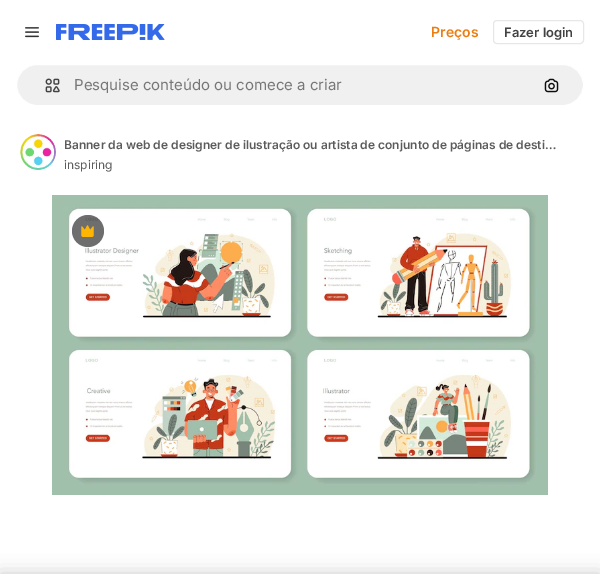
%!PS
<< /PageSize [600 574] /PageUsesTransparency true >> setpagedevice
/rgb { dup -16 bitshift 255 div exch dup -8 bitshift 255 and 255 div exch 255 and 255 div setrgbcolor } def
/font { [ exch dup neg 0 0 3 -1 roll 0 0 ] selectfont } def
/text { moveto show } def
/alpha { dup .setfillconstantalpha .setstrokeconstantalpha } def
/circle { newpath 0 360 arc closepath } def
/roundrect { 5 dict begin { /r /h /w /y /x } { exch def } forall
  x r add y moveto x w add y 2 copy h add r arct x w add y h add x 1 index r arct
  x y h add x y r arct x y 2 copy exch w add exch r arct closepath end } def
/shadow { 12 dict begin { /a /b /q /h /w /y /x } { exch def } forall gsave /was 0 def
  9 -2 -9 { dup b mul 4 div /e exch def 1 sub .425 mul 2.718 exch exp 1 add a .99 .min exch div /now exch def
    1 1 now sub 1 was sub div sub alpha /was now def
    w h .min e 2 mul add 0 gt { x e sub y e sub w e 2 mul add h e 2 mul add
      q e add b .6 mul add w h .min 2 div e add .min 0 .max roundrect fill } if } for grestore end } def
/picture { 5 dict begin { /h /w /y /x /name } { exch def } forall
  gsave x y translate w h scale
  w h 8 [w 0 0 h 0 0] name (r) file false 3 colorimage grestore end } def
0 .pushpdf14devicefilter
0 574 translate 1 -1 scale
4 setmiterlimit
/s1 { /Inter-SemiBold 14 font 16#EA7E11 rgb } def
/s2 { /Inter-SemiBold 13 font 16#424242 rgb } def
/s3 { /Inter-Regular 15 font 16#777777 rgb } def
/s4 { /Inter-SemiBold 12 font 16#5C5C5C rgb } def
/s5 { /Inter-Regular 12 font 16#5C5C5C rgb } def
16#FFFFFF rgb
0 0 600 574 rectfill
(pic1.raw) 25 27 14 11 picture
(pic2.raw) 56 24 109 16 picture
s1
(Preços) 431 37 text
16#E7E7E7 rgb
493.5 20.5 90 23 3.5 roundrect stroke
s2
(Fazer login) 504 37 text
16#F0F0F0 rgb
16.5 64.5 567 41 20.5 roundrect gsave fill grestore
16#FFFFFF rgb
stroke
(pic3.raw) 45 78 15 15 picture
s3
(Pesquise conteúdo ou comece a criar) 74 90 text
(pic4.raw) 544 78 15 15 picture
(pic5.raw) 20 134 36 36 picture
s4
(Banner da web de designer de ilustração ou artista de conjunto de páginas de desti…) 64 149 text
s5
(inspiring) 64 169 text
(pic6.raw) 52 195 496 300 picture
0.6 alpha
16#0D0D0D rgb
88 231 16 circle fill
1 alpha
(pic7.raw) 81 225 13 12 picture
16#000000 rgb
0 574 600 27 0 9 0.2 shadow
.poppdf14devicefilter showpage
